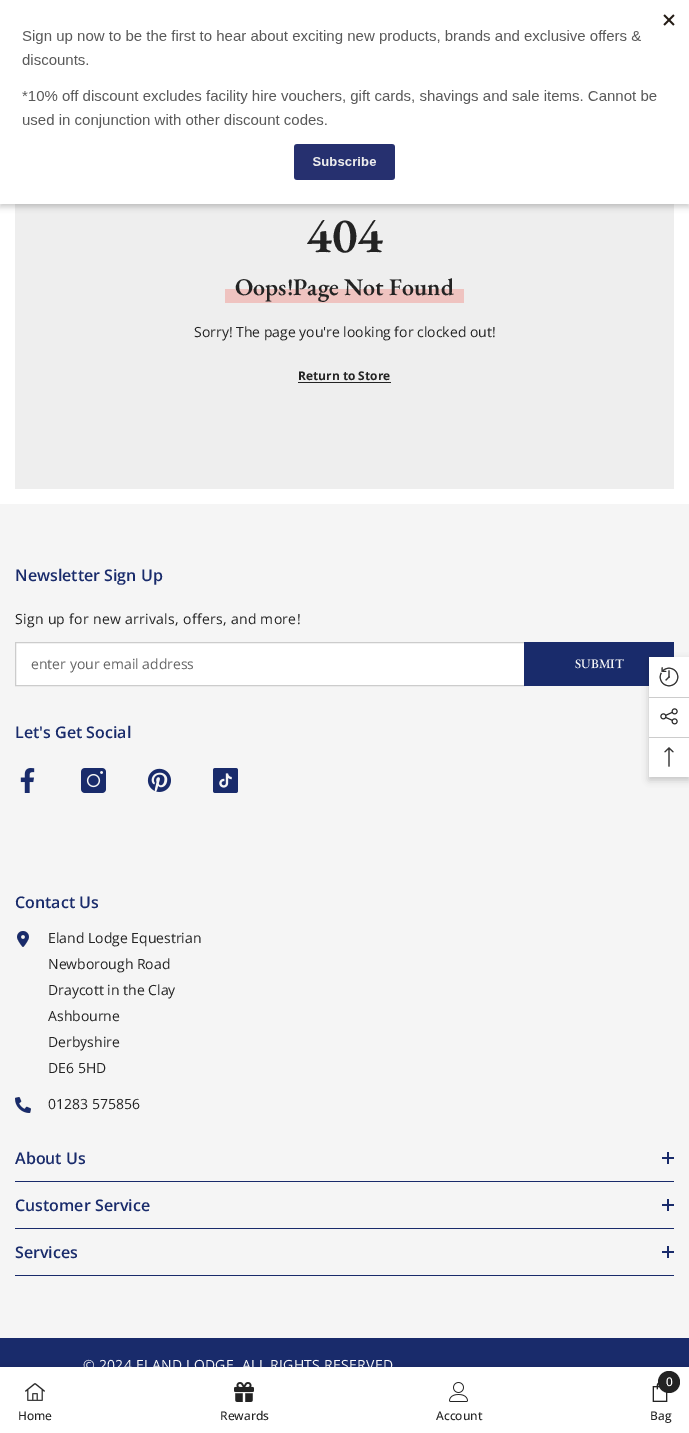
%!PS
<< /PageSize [689 1433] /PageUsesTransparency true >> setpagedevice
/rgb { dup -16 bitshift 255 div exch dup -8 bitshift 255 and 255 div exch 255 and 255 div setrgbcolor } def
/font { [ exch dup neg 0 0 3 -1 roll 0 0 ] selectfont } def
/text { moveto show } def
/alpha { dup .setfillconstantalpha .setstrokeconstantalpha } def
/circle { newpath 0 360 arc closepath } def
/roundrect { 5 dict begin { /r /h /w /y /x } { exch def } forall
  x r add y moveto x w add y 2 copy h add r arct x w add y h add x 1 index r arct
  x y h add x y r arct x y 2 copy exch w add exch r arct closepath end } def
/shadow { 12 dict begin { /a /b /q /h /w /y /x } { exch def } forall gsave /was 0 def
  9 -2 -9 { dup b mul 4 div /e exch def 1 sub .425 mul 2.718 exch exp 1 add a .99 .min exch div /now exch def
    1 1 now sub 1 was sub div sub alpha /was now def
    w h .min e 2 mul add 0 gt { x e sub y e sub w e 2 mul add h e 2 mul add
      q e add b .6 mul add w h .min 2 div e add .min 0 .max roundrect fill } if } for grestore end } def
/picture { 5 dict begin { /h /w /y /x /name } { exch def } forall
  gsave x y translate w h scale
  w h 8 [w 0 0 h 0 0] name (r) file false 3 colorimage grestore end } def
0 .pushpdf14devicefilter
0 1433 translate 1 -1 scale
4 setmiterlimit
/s1 { /EBGaramond-SemiBold 50 font 16#232323 rgb } def
/s2 { /EBGaramond-SemiBold 24 font 16#232323 rgb } def
/s3 { /OpenSans-Regular 14 font 16#232323 rgb } def
/s4 { /OpenSans-Bold 12 font 16#232323 rgb } def
/s5 { /OpenSans-SemiBold 16 font 16#192B6B rgb } def
/s6 { /OpenSans-Regular 14 font 16#646464 rgb } def
/s7 { /EBGaramond-Medium 13 font 16#F8F8F8 rgb } def
/s8 { /OpenSans-Medium 12 font 16#232323 rgb } def
/s9 { /OpenSans-Medium 12 font 16#FFFFFF rgb } def
16#FFFFFF rgb
0 0 689 1433 rectfill
16#EEEEEE rgb
15 204 659 285 rectfill
16#000000 rgb
0 3 689 204 0 3 0.2 shadow
16#FFFFFF rgb
0 0 689 204 rectfill
(pic1.raw) 22 14 653 166 picture
s1
(404) 306 252 text
16#EFC3C0 rgb
225 289 239 14 rectfill
s2
(Oops!Page Not Found) 235 295 text
s3
(Sorry! The page you're looking for clocked out!) 194 337 text
s4
(Return to Store) 298 380 text
298 382 93 1 rectfill
16#F5F5F5 rgb
0 504 689 834 rectfill
s5
(Newsletter Sign Up) 15 581 text
/OpenSans-Regular 14 font
16#232323 rgb
15 624 moveto 0.3 0 (Sign up for new arrivals, offers, and more!) ashow
16#FFFFFF rgb
15.5 642.5 moveto 524.5 642.5 lineto 524.5 685.5 lineto 15.5 685.5 lineto closepath gsave fill grestore
16#CCCCCC rgb
stroke
s6
(enter your email address) 31 669 text
16#192B6B rgb
524 642 150 44 rectfill
s7
(SUBMIT) 575 668 text
s5
(Let's Get Social) 15 738 text
(pic2.raw) 20 768 15 25 picture
(pic3.raw) 81 768 25 25 picture
(pic4.raw) 147 768 24 24 picture
(pic5.raw) 213 768 25 25 picture
(Contact Us) 15 908 text
(pic6.raw) 17 931 12 16 picture
s3
(Eland Lodge Equestrian) 48 943 text
(Newborough Road) 48 969 text
(Draycott in the Clay) 48 995 text
(Ashbourne) 48 1021 text
(Derbyshire) 48 1047 text
(DE6 5HD) 48 1073 text
(pic7.raw) 15 1097 16 16 picture
(01283 575856) 48 1109 text
16#192B6B rgb
15 1181 659 1 rectfill
s5
(About Us) 15 1164 text
667 1152 2 12 rectfill
662 1157 12 2 rectfill
15 1228 659 1 rectfill
(Customer Service) 15 1211 text
667 1199 2 12 rectfill
662 1204 12 2 rectfill
15 1275 659 1 rectfill
(Services) 15 1258 text
667 1246 2 12 rectfill
662 1251 12 2 rectfill
0 1338 689 29 rectfill
/OpenSans-Regular 14 font
16#FFFFFF rgb
83 1370 moveto 0.3 0 (© 2024 ELAND LODGE. ALL RIGHTS RESERVED) ashow
16#000000 rgb
0 1367 689 66 0 4.5 0.12 shadow
16#FFFFFF rgb
0 1367 689 66 rectfill
(pic8.raw) 25 1383 20 18 picture
s8
(Home) 18 1420 text
(pic9.raw) 234 1382 20 20 picture
(Rewards) 220 1420 text
(pic10.raw) 449 1382 19 20 picture
(Account) 436 1420 text
(pic11.raw) 652 1382 16 20 picture
669 1382 11 circle fill
s9
(0) 666 1386 text
s8
(Bag) 650 1420 text
16#000000 rgb
649 660 40 120 0 3.5 0.2 shadow
16#FFFFFF rgb
649 657 40 120 rectfill
(pic12.raw) 659 667 20 20 picture
16#CCCCCC rgb
649 697 40 1 rectfill
(pic13.raw) 660 708 18 17 picture
649 737 40 1 rectfill
(pic14.raw) 664 747 10 20 picture
.poppdf14devicefilter showpage
